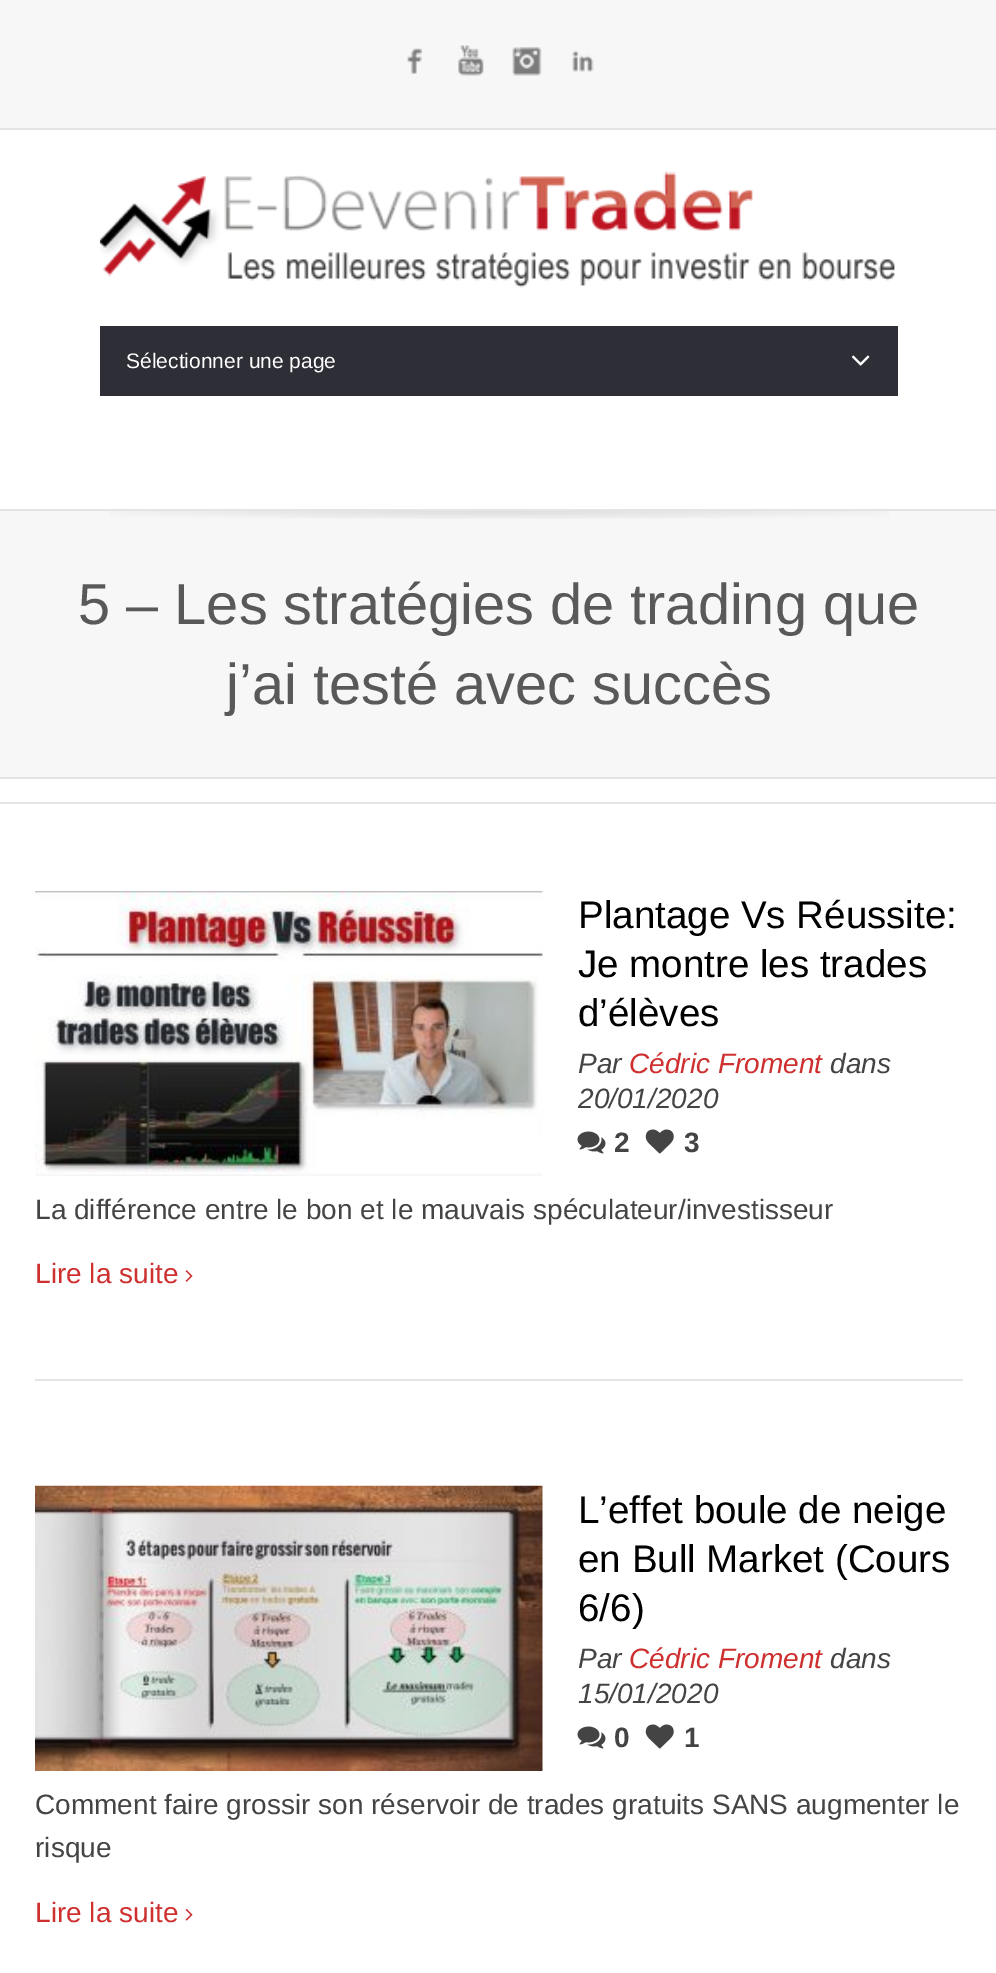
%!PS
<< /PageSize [996 1973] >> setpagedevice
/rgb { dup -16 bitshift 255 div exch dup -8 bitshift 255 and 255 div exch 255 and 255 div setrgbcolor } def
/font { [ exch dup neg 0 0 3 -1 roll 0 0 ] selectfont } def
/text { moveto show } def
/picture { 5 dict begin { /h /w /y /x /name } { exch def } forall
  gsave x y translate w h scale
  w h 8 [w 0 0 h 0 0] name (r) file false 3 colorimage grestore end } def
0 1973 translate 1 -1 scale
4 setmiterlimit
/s1 { /LiberationSans-Regular 21 font 16#FFFFFF rgb } def
/s2 { /LiberationSans-Regular 57.75 font 16#595959 rgb } def
/s3 { /LiberationSans-Regular 38.5 font 16#000000 rgb } def
/s4 { /LiberationSans-Italic 28 font 16#444444 rgb } def
/s5 { /LiberationSans-Italic 28 font 16#CE2F2F rgb } def
/s6 { /LiberationSans-Bold 28 font 16#444444 rgb } def
/s7 { /LiberationSans-Regular 28 font 16#444444 rgb } def
/s8 { /LiberationSans-Regular 28 font 16#CE2F2F rgb } def
16#FFFFFF rgb
0 0 996 1973 rectfill
16#F7F7F7 rgb
0 0 996 128 rectfill
16#E4E4E4 rgb
0 128 996 2 rectfill
(pic1.raw) 407 48 16 26 picture
(pic2.raw) 458 45 26 31 picture
(pic3.raw) 512 47 30 29 picture
(pic4.raw) 572 50 22 22 picture
0 509 996 2 rectfill
(pic5.raw) 99 171 796 117 picture
16#2E2E36 rgb
100 326 798 70 rectfill
s1
(Sélectionner une page) 126 368 text
(pic6.raw) 851 355 19 11 picture
16#F7F7F7 rgb
0 511 996 266 rectfill
(pic7.raw) 110 511 779 8 picture
16#E4E4E4 rgb
0 777 996 2 rectfill
s2
(5 – Les stratégies de trading que) 78 624 text
(j’ai testé avec succès) 226 704 text
16#E4E4E4 rgb
0 802 996 2 rectfill
(pic8.raw) 35 890 508 286 picture
s3
(Plantage Vs Réussite:) 578 928 text
(Je montre les trades) 578 977 text
(d’élèves) 578 1026 text
s4
(Par) 578 1073 text
s5
(Cédric Froment) 629 1073 text
s4
(dans) 830 1073 text
(20/01/2020) 578 1108 text
(pic9.raw) 577 1131 29 23 picture
s6
(2) 614 1152 text
(pic10.raw) 645 1129 29 25 picture
(3) 684 1152 text
s7
(La différence entre le bon et le mauvais spéculateur/investisseur) 35 1219 text
s8
(Lire la suite) 35 1283 text
(pic11.raw) 185 1270 8 12 picture
16#E4E4E4 rgb
35 1379 928 2 rectfill
(pic12.raw) 35 1485 508 286 picture
s3
(L’effet boule de neige) 578 1523 text
(en Bull Market \(Cours) 578 1572 text
(6/6\)) 578 1621 text
s4
(Par) 578 1668 text
s5
(Cédric Froment) 629 1668 text
s4
(dans) 830 1668 text
(15/01/2020) 578 1703 text
(pic9.raw) 577 1726 29 23 picture
s6
(0) 614 1747 text
(pic10.raw) 645 1724 29 25 picture
(1) 684 1747 text
s7
(Comment faire grossir son réservoir de trades gratuits SANS augmenter le) 35 1814 text
(risque) 35 1857 text
s8
(Lire la suite) 35 1922 text
(pic13.raw) 185 1909 8 12 picture
showpage
